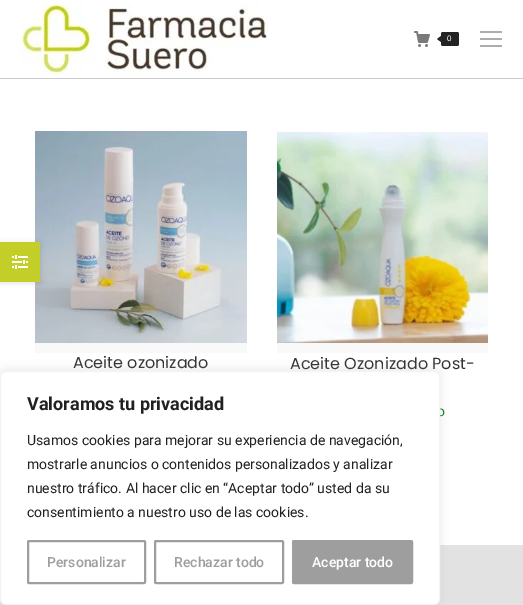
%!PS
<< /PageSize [523 605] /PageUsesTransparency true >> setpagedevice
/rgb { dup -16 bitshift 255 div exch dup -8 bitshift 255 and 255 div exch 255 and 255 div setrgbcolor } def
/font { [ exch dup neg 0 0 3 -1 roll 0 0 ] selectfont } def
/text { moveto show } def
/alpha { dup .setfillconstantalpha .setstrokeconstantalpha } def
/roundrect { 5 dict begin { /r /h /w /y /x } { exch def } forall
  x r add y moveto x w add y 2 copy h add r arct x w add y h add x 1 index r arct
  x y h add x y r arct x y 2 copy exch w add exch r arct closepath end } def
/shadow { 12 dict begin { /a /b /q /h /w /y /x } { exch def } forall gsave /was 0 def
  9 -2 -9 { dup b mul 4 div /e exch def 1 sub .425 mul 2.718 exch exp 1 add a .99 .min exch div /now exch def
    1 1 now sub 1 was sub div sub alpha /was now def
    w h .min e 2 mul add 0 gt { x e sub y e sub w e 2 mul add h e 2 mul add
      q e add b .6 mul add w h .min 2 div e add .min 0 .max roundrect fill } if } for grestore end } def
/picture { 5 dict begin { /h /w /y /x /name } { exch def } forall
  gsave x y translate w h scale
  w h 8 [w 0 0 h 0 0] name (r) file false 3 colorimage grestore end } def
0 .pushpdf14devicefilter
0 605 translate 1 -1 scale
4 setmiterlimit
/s1 { /LiberationSans-Regular 8 font 16#FFFFFF rgb } def
/s2 { /Poppins-Regular 16 font 16#333333 rgb } def
/s3 { /Roboto-Regular 14 font 16#177925 rgb } def
/s4 { /Roboto-Bold 18 font 16#212121 rgb } def
/s5 { /Roboto-Regular 14 font 16#212121 rgb } def
/s6 { /Roboto-Medium 14 font 16#9E9E9E rgb } def
/s7 { /Roboto-Medium 14 font 16#FFFFFF rgb } def
16#FFFFFF rgb
0 0 523 605 rectfill
16#C9C9C9 rgb
0 78 523 1 rectfill
(pic1.raw) 20 0 248 76 picture
(pic2.raw) 414 31 16 16 picture
16#232323 rgb
441 32 18 14 2 roundrect fill
441 36 moveto 441 42 lineto 437 39 lineto closepath fill
s1
(0) 447 41 text
16#ADADAD rgb
480 31 22 2 rectfill
480 38 22 2 rectfill
480 45 22 2 rectfill
(pic4.raw) 35 131 212 212 picture
16#000000 rgb
0 243 40 40 0 3 0.12 shadow
16#C3CE28 rgb
0 242 40 40 rectfill
(pic3.raw) 12 255 16 14 picture
16#F9F9FA rgb
35 343 212 10 rectfill
s2
(Aceite ozonizado) 73 368 text
16#F9F9FA rgb
277 343 211 10 rectfill
(pic5.raw) 277 132 211 211 picture
s2
(Aceite Ozonizado Post-) 290 369 text
s3
(o) 437 416 text
16#E2E2E2 rgb
0 545 523 60 rectfill
16#ACABAB rgb
0 370 440 234 6 5 0.3 shadow
16#FFFFFF rgb
0.5 371.5 439 233 5.5 roundrect gsave fill grestore
16#F4F4F4 rgb
stroke
s4
(Valoramos tu privacidad) 27 410 text
s5
(Usamos cookies para mejorar su experiencia de navegación,) 27 445 text
(mostrarle anuncios o contenidos personalizados y analizar) 27 469 text
(nuestro tráfico. Al hacer clic en “Aceptar todo” usted da su) 27 493 text
(consentimiento a nuestro uso de las cookies.) 27 517 text
16#9E9E9E rgb
2 setlinewidth
28 541 117 42 1 roundrect stroke
s6
(Personalizar) 47 567 text
155 541 128 42 1 roundrect stroke
(Rechazar todo) 174 567 text
293 541 119 42 1 roundrect gsave fill grestore
stroke
s7
(Aceptar todo) 312 567 text
.poppdf14devicefilter showpage
